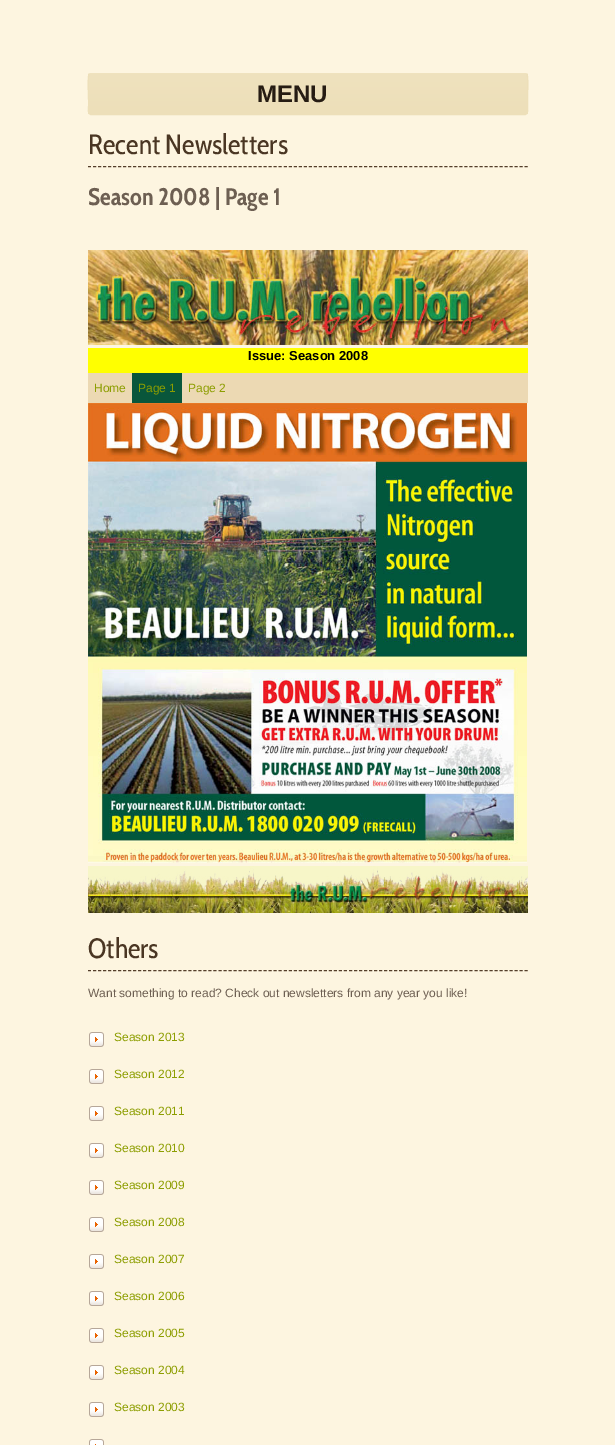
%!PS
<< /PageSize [615 1445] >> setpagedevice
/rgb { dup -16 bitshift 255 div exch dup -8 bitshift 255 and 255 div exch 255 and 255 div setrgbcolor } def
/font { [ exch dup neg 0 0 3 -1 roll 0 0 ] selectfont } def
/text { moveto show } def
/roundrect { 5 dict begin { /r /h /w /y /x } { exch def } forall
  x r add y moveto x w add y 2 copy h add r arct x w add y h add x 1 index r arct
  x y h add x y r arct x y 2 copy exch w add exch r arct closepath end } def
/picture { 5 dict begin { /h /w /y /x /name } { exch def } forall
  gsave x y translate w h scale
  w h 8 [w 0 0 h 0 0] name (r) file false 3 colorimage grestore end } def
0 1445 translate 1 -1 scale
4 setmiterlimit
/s1 { /LiberationSans-Bold 24 font 16#261C13 rgb } def
/s2 { /CabinCondensed-Regular 28 font 16#4A3623 rgb } def
/s3 { /CabinCondensed-Bold 24 font 16#6D5F52 rgb } def
/s4 { /LiberationSans-Bold 13 font 16#000000 rgb } def
/s5 { /LiberationSans-Regular 12 font 16#8D9E01 rgb } def
/s6 { /LiberationSans-Regular 12 font 16#6D5F52 rgb } def
16#FDF5E0 rgb
0 0 615 1445 rectfill
gsave
88 73 440 42 3 roundrect clip newpath
gsave 88 74 moveto 528 74 lineto 528 114 lineto 88 114 lineto closepath clip newpath
<< /ShadingType 2 /ColorSpace /DeviceRGB /Coords [308 74 308 114] /Extend [true true] /Function << /FunctionType 2 /Domain [0 1] /C0 [0.937 0.886 0.745] /C1 [0.929 0.875 0.725] /N 1 >> >> shfill grestore
grestore
16#EFE2BE rgb
89 74 moveto 91 73.5 lineto 525 73.5 lineto 527 74 lineto stroke
16#EDDFB9 rgb
527 74 moveto 528.5 76 527.5 96.5 527.5 100 curveto 527.5 106 lineto 527.5 107.5 529 114.5 525 114.5 curveto 91 114.5 lineto 87 114.5 88.5 107.5 88.5 106 curveto 88.5 100 lineto 88.5 96.5 87.5 76 89 74 curveto stroke
s1
(MENU) 257 102 text
16#543E2A rgb
[3 2.02] 0 setdash
88 166.5 moveto 528 166.5 lineto stroke
s2
(Recent Newsletters) 88 154 text
s3
(Season 2008 | Page 1) 88 205 text
(pic1.raw) 88 250 440 95 picture
16#FFFF00 rgb
88 348 440 25 rectfill
s4
(Issue: Season 2008) 248 360 text
16#ECD9B3 rgb
88 373 440 30 rectfill
s5
(Home) 94 392 text
16#09563B rgb
132 373 50 30 rectfill
s5
(Page 1) 138 392 text
(Page 2) 188 392 text
(pic2.raw) 88 403 439 460 picture
(pic3.raw) 88 866 440 47 picture
16#543E2A rgb
88 970.5 moveto 528 970.5 lineto stroke
s2
(Others) 88 958 text
s6
(Want something to read? Check out newsletters from any year you like!) 88 997 text
(pic4.raw) 89 1032 15 15 picture
s5
(Season 2013) 114 1041 text
(pic4.raw) 89 1069 15 15 picture
(Season 2012) 114 1078 text
(pic4.raw) 89 1106 15 15 picture
(Season 2011) 114 1115 text
(pic4.raw) 89 1143 15 15 picture
(Season 2010) 114 1152 text
(pic4.raw) 89 1180 15 15 picture
(Season 2009) 114 1189 text
(pic4.raw) 89 1217 15 15 picture
(Season 2008) 114 1226 text
(pic4.raw) 89 1254 15 15 picture
(Season 2007) 114 1263 text
(pic4.raw) 89 1291 15 15 picture
(Season 2006) 114 1300 text
(pic4.raw) 89 1328 15 15 picture
(Season 2005) 114 1337 text
(pic4.raw) 89 1365 15 15 picture
(Season 2004) 114 1374 text
(pic4.raw) 89 1402 15 15 picture
(Season 2003) 114 1411 text
(pic5.raw) 89 1439 15 6 picture
showpage
